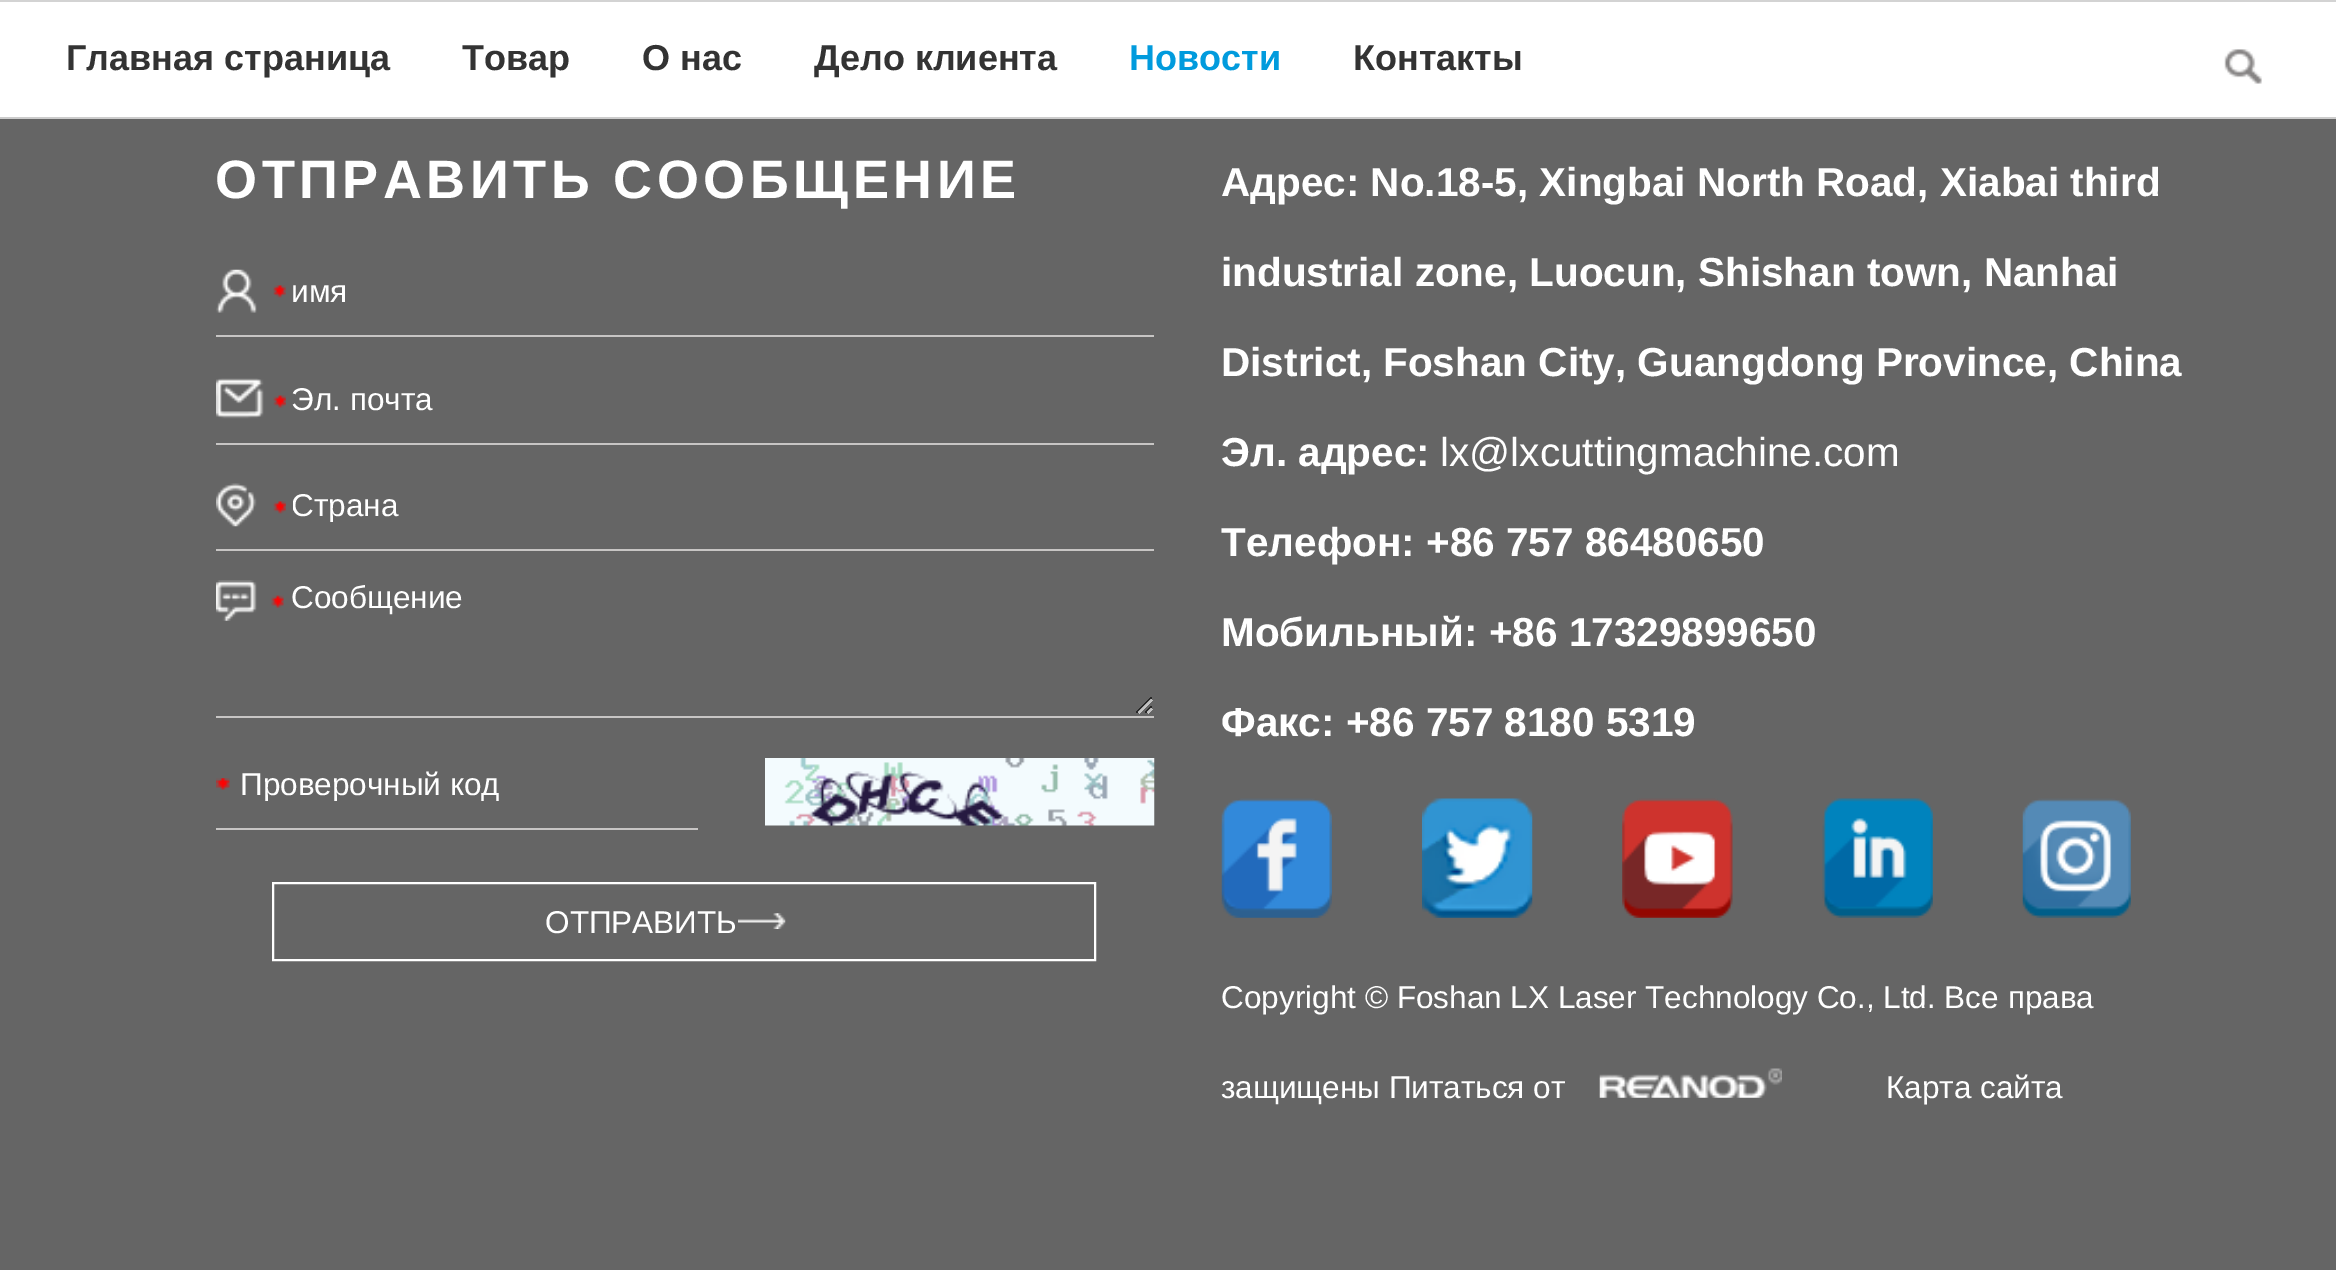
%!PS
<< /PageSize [2336 1270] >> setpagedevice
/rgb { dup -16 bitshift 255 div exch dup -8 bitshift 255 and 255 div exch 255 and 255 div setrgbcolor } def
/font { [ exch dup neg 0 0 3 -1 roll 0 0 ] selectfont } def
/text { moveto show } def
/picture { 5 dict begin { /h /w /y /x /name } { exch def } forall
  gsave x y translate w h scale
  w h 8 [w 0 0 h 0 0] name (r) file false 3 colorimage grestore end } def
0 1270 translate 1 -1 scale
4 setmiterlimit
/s1 { /LiberationSans-Bold 36 font 16#333333 rgb } def
/s2 { /LiberationSans-Bold 36 font 16#019BDD rgb } def
/s3 { /LiberationSans-Regular 31.5 font 16#FFFFFF rgb } def
/s4 { /LiberationSans-Bold 40.5 font 16#FFFFFF rgb } def
/s5 { /LiberationSans-Regular 40.5 font 16#FFFFFF rgb } def
16#656565 rgb
0 0 2336 1270 rectfill
16#FFFFFF rgb
0 2 2336 115 rectfill
16#D3D3D3 rgb
0 0 2336 2 rectfill
16#CCCCCC rgb
0 117 2336 2 rectfill
s1
(Главная страница) 66 70 text
(Товар) 462 70 text
(О нас) 642 70 text
(Дело клиента) 814 70 text
s2
(Новости) 1129 70 text
s1
(Контакты) 1353 70 text
(pic1.raw) 2224 49 38 35 picture
/LiberationSans-Bold 54 font
16#FFFFFF rgb
215 198 moveto 4.5 0 (ОТПРАВИТЬ СООБЩЕНИЕ) ashow
(pic2.raw) 216 269 70 44 picture
16#C7C5C4 rgb
216 335 938 2 rectfill
s3
(имя) 291 302 text
(pic3.raw) 216 378 70 41 picture
16#C7C5C4 rgb
216 443 938 2 rectfill
s3
(Эл. почта) 291 410 text
(pic4.raw) 216 483 70 44 picture
16#C7C5C4 rgb
216 549 938 2 rectfill
gsave
293 486 861 36 rectclip
s3
(Страна) 291 516 text
grestore
(pic5.raw) 216 580 937 134 picture
216 716 938 2 rectfill
s3
(Сообщение) 291 608 text
(pic6.raw) 216 778 14 12 picture
16#C7C5C4 rgb
216 828 482 2 rectfill
gsave
241 765 457 36 rectclip
s3
(Проверочный код) 240 795 text
grestore
(pic7.raw) 765 758 390 68 picture
(pic8.raw) 738 913 48 16 picture
16#FFFFFF rgb
2 setlinewidth
273 883 822 77 rectstroke
(ОТПРАВИТЬ) 545 933 text
s4
(Адрес: No.18-5, Xingbai North Road, Xiabai third) 1221 196 text
(industrial zone, Luocun, Shishan town, Nanhai) 1221 286 text
(District, Foshan City, Guangdong Province, China) 1221 376 text
(Эл. адрес:) 1221 466 text
s5
(lx@lxcuttingmachine.com) 1440 466 text
s4
(Телефон: +86 757 86480650) 1221 556 text
(Мобильный: +86 17329899650) 1221 646 text
(Факс: +86 757 8180 5319) 1221 736 text
(pic9.raw) 1221 798 111 120 picture
(pic10.raw) 1422 798 111 120 picture
(pic11.raw) 1622 798 111 120 picture
(pic12.raw) 1822 798 111 120 picture
(pic13.raw) 2022 798 109 120 picture
s3
(Copyright © Foshan LX Laser Technology Co., Ltd. Все права) 1221 1008 text
(защищены Питаться от) 1221 1098 text
(pic14.raw) 1599 1068 183 30 picture
(Карта сайта) 1886 1098 text
showpage
